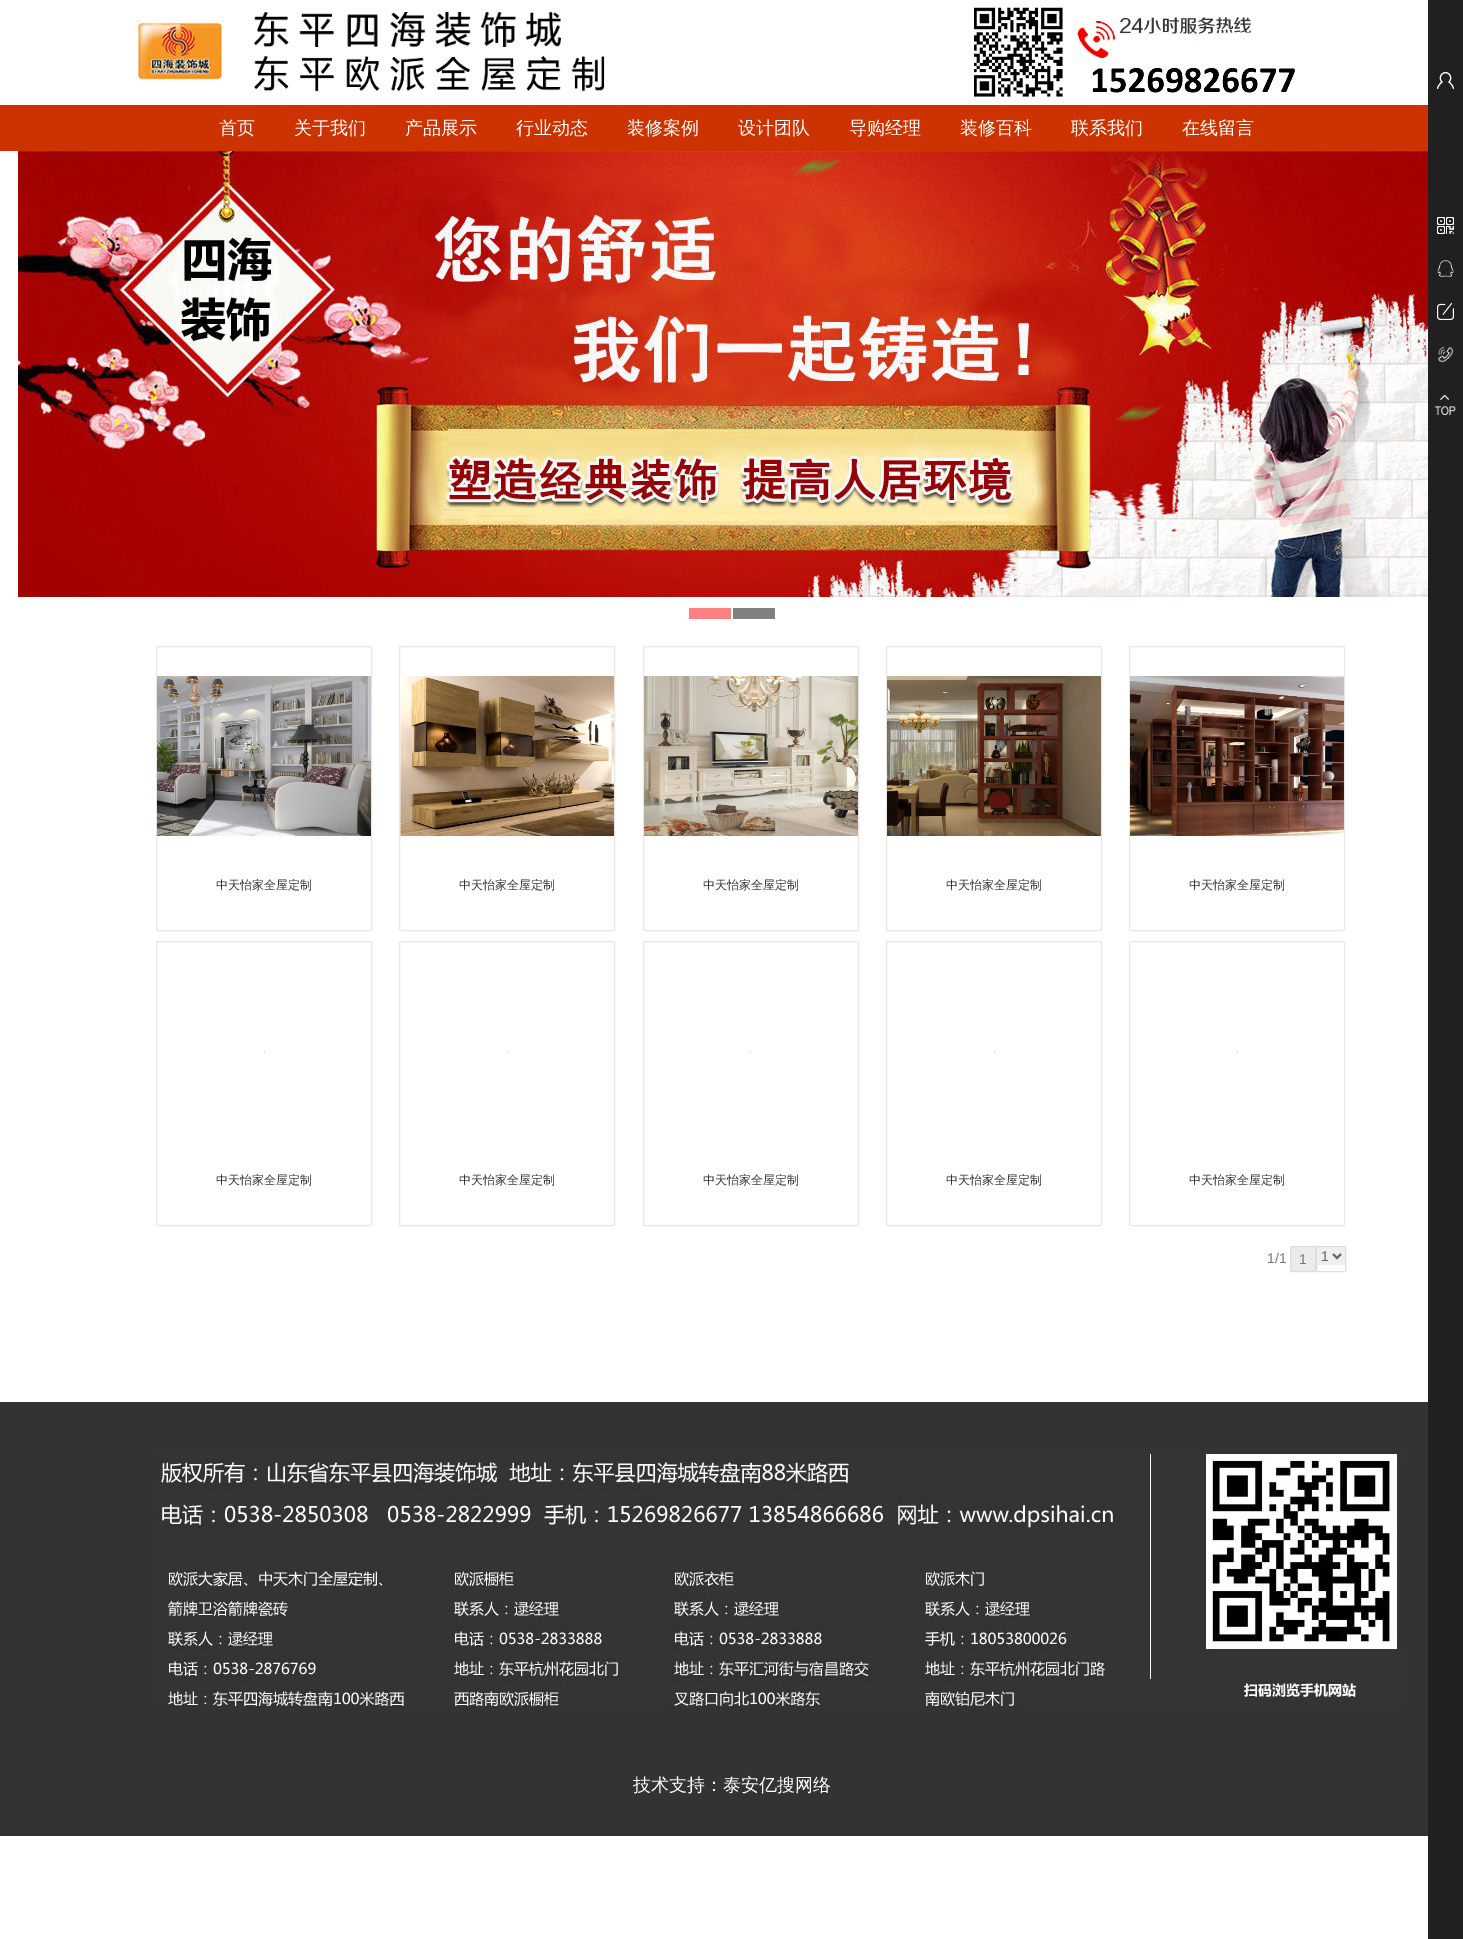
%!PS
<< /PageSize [1463 1939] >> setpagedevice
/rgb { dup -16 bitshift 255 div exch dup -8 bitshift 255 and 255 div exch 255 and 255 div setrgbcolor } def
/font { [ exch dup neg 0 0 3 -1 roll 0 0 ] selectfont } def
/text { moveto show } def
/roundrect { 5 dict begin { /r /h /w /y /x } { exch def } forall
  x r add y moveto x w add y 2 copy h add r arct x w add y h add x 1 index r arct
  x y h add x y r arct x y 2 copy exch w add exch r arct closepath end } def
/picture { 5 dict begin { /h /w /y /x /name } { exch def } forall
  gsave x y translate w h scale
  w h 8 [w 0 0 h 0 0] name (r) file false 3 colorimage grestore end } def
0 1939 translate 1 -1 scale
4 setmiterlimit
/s1 { /WenQuanYiZenHei-Medium 18 font 16#FFFFFF rgb } def
/s2 { /WenQuanYiZenHei-Medium 12 font 16#333333 rgb } def
/s3 { /LiberationSans-Regular 14 font 16#777777 rgb } def
/s4 { /LiberationSans-Regular 14 font 16#666666 rgb } def
16#FFFFFF rgb
0 0 1463 1939 rectfill
(pic1.raw) 137 12 468 80 picture
(pic2.raw) 974 7 321 90 picture
16#CC3300 rgb
0 105 1428 46 rectfill
s1
(首页) 219 134 text
(关于我们) 294 134 text
(产品展示) 405 134 text
(行业动态) 516 134 text
(装修案例) 627 134 text
(设计团队) 738 134 text
(导购经理) 849 134 text
(装修百科) 960 134 text
(联系我们) 1071 134 text
(在线留言) 1182 134 text
(pic3.raw) 18 151 1410 446 picture
16#FF8080 rgb
689 608 42 11 rectfill
16#808080 rgb
733 608 42 11 rectfill
16#EBE8E3 rgb
156.5 646.5 215 284 1.5 roundrect stroke
(pic4.raw) 157 676 214 160 picture
s2
(中天怡家全屋定制) 216 889 text
16#EBE8E3 rgb
399.5 646.5 215 284 1.5 roundrect stroke
(pic5.raw) 400 676 214 160 picture
s2
(中天怡家全屋定制) 459 889 text
16#EBE8E3 rgb
643.5 646.5 215 284 1.5 roundrect stroke
(pic6.raw) 644 676 214 160 picture
s2
(中天怡家全屋定制) 703 889 text
16#EBE8E3 rgb
886.5 646.5 215 284 1.5 roundrect stroke
(pic7.raw) 887 676 214 160 picture
s2
(中天怡家全屋定制) 946 889 text
16#EBE8E3 rgb
1129.5 646.5 215 284 1.5 roundrect stroke
(pic8.raw) 1130 676 214 160 picture
s2
(中天怡家全屋定制) 1189 889 text
16#EBE8E3 rgb
156.5 941.5 215 284 1.5 roundrect stroke
16#C3C3C3 rgb
264 1051 1 1 rectfill
s2
(中天怡家全屋定制) 216 1184 text
16#EBE8E3 rgb
399.5 941.5 215 284 1.5 roundrect stroke
16#C3C3C3 rgb
507 1051 1 1 rectfill
s2
(中天怡家全屋定制) 459 1184 text
16#EBE8E3 rgb
643.5 941.5 215 284 1.5 roundrect stroke
16#C3C3C3 rgb
750 1051 1 1 rectfill
s2
(中天怡家全屋定制) 703 1184 text
16#EBE8E3 rgb
886.5 941.5 215 284 1.5 roundrect stroke
16#C3C3C3 rgb
994 1051 1 1 rectfill
s2
(中天怡家全屋定制) 946 1184 text
16#EBE8E3 rgb
1129.5 941.5 215 284 1.5 roundrect stroke
16#C3C3C3 rgb
1237 1051 1 1 rectfill
s2
(中天怡家全屋定制) 1189 1184 text
s3
(1/1) 1267 1263 text
16#EBEBEB rgb
1290.5 1246.5 25 25 1.5 roundrect gsave fill grestore
16#DDDDDD rgb
stroke
s3
(1) 1299 1264 text
16#DDDDDD rgb
1316.5 1246.5 29 25 1.5 roundrect stroke
16#FFFFFF rgb
1317 1270 28 1 rectfill
16#EFEFEF rgb
1317 1247 28 18 rectfill
16#666666 rgb
2 setlinewidth
1333 1254 moveto 1337 1258 lineto 1341 1254 lineto stroke
(1) 1321 1261 text
16#333333 rgb
0 1402 1428 434 rectfill
(pic9.raw) 156 1450 1248 256 picture
s1
(技术支持：泰安亿搜网络) 633 1791 text
16#202020 rgb
1428 0 35 1939 rectfill
(pic10.raw) 1437 72 17 17 picture
(pic11.raw) 1437 217 17 17 picture
(pic12.raw) 1437 260 17 17 picture
(pic13.raw) 1437 303 17 17 picture
(pic14.raw) 1438 346 16 17 picture
(pic15.raw) 1435 395 21 20 picture
showpage
